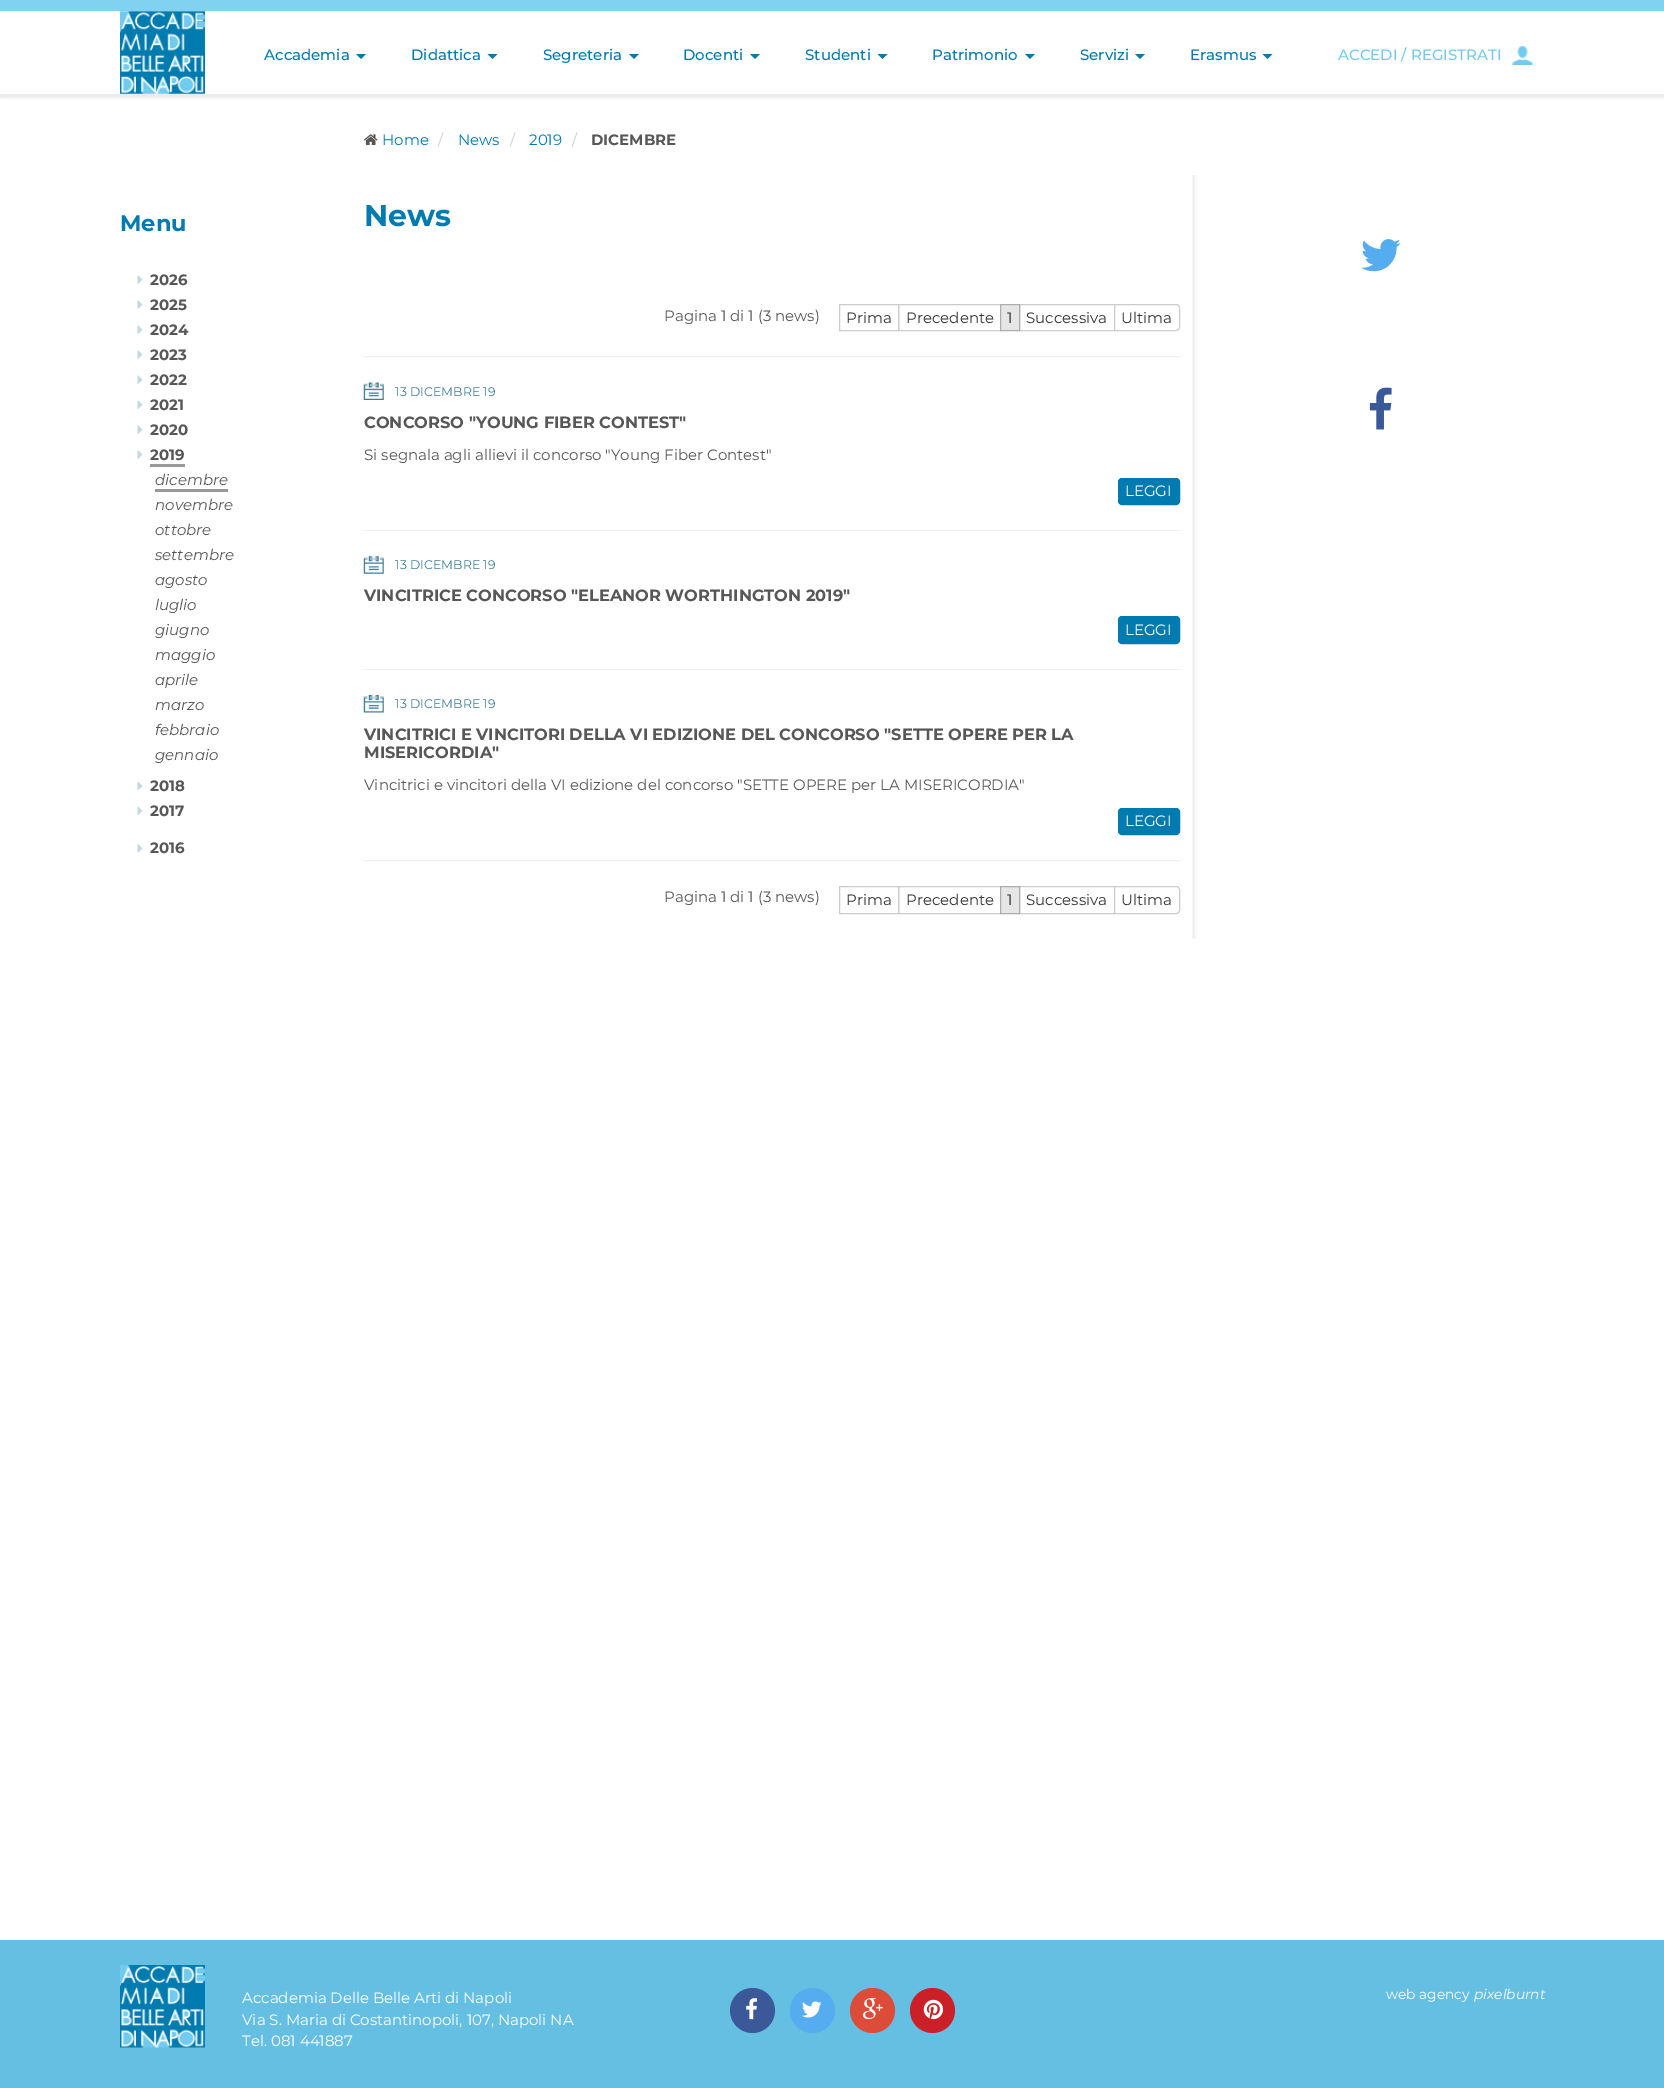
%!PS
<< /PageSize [1664 2088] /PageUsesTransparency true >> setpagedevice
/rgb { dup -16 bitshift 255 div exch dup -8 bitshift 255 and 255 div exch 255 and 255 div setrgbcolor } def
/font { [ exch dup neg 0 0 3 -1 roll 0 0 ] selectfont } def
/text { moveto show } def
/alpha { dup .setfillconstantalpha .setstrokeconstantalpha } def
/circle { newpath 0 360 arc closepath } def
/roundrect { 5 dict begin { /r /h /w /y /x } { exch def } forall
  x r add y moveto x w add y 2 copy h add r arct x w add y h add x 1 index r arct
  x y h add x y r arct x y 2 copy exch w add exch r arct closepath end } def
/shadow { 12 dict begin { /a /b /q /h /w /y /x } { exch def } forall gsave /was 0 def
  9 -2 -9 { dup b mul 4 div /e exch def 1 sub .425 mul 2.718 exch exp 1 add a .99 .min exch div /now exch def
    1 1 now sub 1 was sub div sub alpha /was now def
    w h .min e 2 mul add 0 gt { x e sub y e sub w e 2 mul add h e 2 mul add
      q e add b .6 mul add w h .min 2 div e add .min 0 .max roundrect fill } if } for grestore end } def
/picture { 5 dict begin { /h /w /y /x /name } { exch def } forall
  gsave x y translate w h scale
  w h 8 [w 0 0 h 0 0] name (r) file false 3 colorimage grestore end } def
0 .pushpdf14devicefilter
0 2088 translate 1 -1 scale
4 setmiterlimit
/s1 { /Montserrat-Medium 15 font 16#007BAF rgb } def
/s2 { /Montserrat-Medium 15 font 16#70CBEE rgb } def
/s3 { /Montserrat-Regular 15 font 16#007BAF rgb } def
/s4 { /Montserrat-Regular 15 font 16#CCCCCC rgb } def
/s5 { /Montserrat-Bold 15 font 16#575757 rgb } def
/s6 { /Montserrat-Bold 22.5 font 16#007BAF rgb } def
/s7 { /Montserrat-Italic 15 font 16#575757 rgb } def
/s8 { /Montserrat-Bold 30 font 16#007BAF rgb } def
/s9 { /Montserrat-Regular 15 font 16#575757 rgb } def
/s10 { /Montserrat-Regular 15 font 16#333333 rgb } def
/s11 { /Montserrat-Regular 12.5 font 16#3B7D97 rgb } def
/s12 { /Montserrat-Bold 16.25 font 16#575757 rgb } def
/s13 { /Montserrat-Regular 15 font 16#FFFFFF rgb } def
/s14 { /Montserrat-Regular 13.75 font 16#FFFFFF rgb } def
/s15 { /Montserrat-Italic 13.75 font 16#FFFFFF rgb } def
16#FFFFFF rgb
0 0 1664 2088 rectfill
gsave
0 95 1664 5 rectclip
16#EBEBEB rgb
0 3 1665 95 0 1 1 shadow
grestore
16#81D1F0 rgb
0 0 1664 11 rectfill
16#EBEBEB rgb
0 94 1664 1 rectfill
(pic1.raw) 120 11 85 83 picture
s1
(Accademia) 264 60 text
356 54 moveto 366 54 lineto 361 59 lineto closepath fill
(Didattica) 411 60 text
487.5 54 moveto 497.5 54 lineto 492.5 59 lineto closepath fill
(Segreteria) 543 60 text
629 54 moveto 639 54 lineto 634 59 lineto closepath fill
(Docenti) 683 60 text
750 54 moveto 760 54 lineto 755 59 lineto closepath fill
(Studenti) 805 60 text
877.5 54 moveto 887.5 54 lineto 882.5 59 lineto closepath fill
(Patrimonio) 932 60 text
1025 54 moveto 1035 54 lineto 1030 59 lineto closepath fill
(Servizi) 1080 60 text
1135 54 moveto 1145 54 lineto 1140 59 lineto closepath fill
(Erasmus) 1190 60 text
1262.5 54 moveto 1272.5 54 lineto 1267.5 59 lineto closepath fill
(pic2.raw) 1512 46 21 19 picture
s2
(ACCEDI / REGISTRATI) 1338 60 text
(pic3.raw) 364 134 14 11 picture
s3
(Home) 382 145 text
s4
(/) 438 145 text
s3
(News) 458 145 text
s4
(/) 510 145 text
s3
(2019) 529 145 text
s4
(/) 572 145 text
s5
(DICEMBRE) 591 145 text
(pic4.raw) 1192 175 5 764 picture
s6
(Menu) 120 231 text
(pic5.raw) 137 275 6 9 picture
s5
(2026) 150 285 text
(pic5.raw) 137 300 6 9 picture
(2025) 150 310 text
(pic5.raw) 137 325 6 9 picture
(2024) 150 335 text
(pic5.raw) 137 350 6 9 picture
(2023) 150 360 text
(pic5.raw) 137 375 6 9 picture
(2022) 150 385 text
(pic5.raw) 137 400 6 9 picture
(2021) 150 410 text
(pic5.raw) 137 425 6 9 picture
(2020) 150 435 text
(pic5.raw) 137 450 6 9 picture
(2019) 150 460 text
16#999999 rgb
150 464 35 3 rectfill
s7
(dicembre) 155 485 text
16#999999 rgb
155 489 73 3 rectfill
s7
(novembre) 155 510 text
(ottobre) 155 535 text
(settembre) 155 560 text
(agosto) 155 585 text
(luglio) 155 610 text
(giugno) 155 635 text
(maggio) 155 660 text
(aprile) 155 685 text
(marzo) 155 710 text
(febbraio) 155 735 text
(gennaio) 155 760 text
(pic6.raw) 137 781 6 9 picture
s5
(2018) 150 791 text
(pic6.raw) 137 806 6 9 picture
(2017) 150 816 text
(pic7.raw) 137 844 6 9 picture
(2016) 150 853 text
s8
(News) 364 226 text
s9
(Pagina 1 di 1 \(3 news\)) 664 321 text
16#CCCCCC rgb
839.5 304.5 59 26 rectstroke
s10
(Prima) 846 323 text
16#CCCCCC rgb
898.5 304.5 102 26 rectstroke
s10
(Precedente) 906 323 text
16#CCCCCC rgb
1019.5 304.5 95 26 rectstroke
16#E6E6E6 rgb
1000.5 304.5 moveto 1019.5 304.5 lineto 1019.5 330.5 lineto 1000.5 330.5 lineto closepath gsave fill grestore
16#ADADAD rgb
stroke
s10
(1) 1007 323 text
(Successiva) 1026 323 text
16#FFFFFF rgb
1114.5 304.5 moveto 1176 304.5 lineto 1178 304.5 1179.5 306 1179.5 308 curveto 1179.5 327 lineto 1179.5 329 1178 330.5 1176 330.5 curveto 1114.5 330.5 lineto closepath gsave fill grestore
16#CCCCCC rgb
stroke
s10
(Ultima) 1121 323 text
16#EEEEEE rgb
364 356 816 1 rectfill
(pic8.raw) 363 382 21 18 picture
s11
(13 DICEMBRE 19) 395 396 text
s12
(CONCORSO "YOUNG FIBER CONTEST") 364 428 text
s9
(Si segnala agli allievi il concorso "Young Fiber Contest") 364 460 text
16#007BAF rgb
1118.5 478.5 61 26 3.5 roundrect gsave fill grestore
stroke
s13
(LEGGI) 1125 496 text
16#EEEEEE rgb
364 530 816 1 rectfill
(pic9.raw) 363 556 21 18 picture
s11
(13 DICEMBRE 19) 395 569 text
s12
(VINCITRICE CONCORSO "ELEANOR WORTHINGTON 2019") 364 601 text
16#007BAF rgb
1118.5 616.5 61 27 3.5 roundrect gsave fill grestore
stroke
s13
(LEGGI) 1125 635 text
16#EEEEEE rgb
364 669 816 1 rectfill
(pic10.raw) 363 695 21 18 picture
s11
(13 DICEMBRE 19) 395 708 text
s12
(VINCITRICI E VINCITORI DELLA VI EDIZIONE DEL CONCORSO "SETTE OPERE PER LA) 364 740 text
(MISERICORDIA") 364 758 text
s9
(Vincitrici e vincitori della VI edizione del concorso "SETTE OPERE per LA MISERICORDIA") 364 790 text
16#007BAF rgb
1118.5 808.5 61 26 3.5 roundrect gsave fill grestore
stroke
s13
(LEGGI) 1125 826 text
16#EEEEEE rgb
364 860 816 1 rectfill
s9
(Pagina 1 di 1 \(3 news\)) 664 902 text
16#CCCCCC rgb
839.5 886.5 59 27 rectstroke
s10
(Prima) 846 905 text
16#CCCCCC rgb
898.5 886.5 102 27 rectstroke
s10
(Precedente) 906 905 text
16#CCCCCC rgb
1019.5 886.5 95 27 rectstroke
16#E6E6E6 rgb
1000.5 886.5 moveto 1019.5 886.5 lineto 1019.5 913.5 lineto 1000.5 913.5 lineto closepath gsave fill grestore
16#ADADAD rgb
stroke
s10
(1) 1007 905 text
(Successiva) 1026 905 text
16#FFFFFF rgb
1114.5 886.5 moveto 1176 886.5 lineto 1178 886.5 1179.5 888 1179.5 890 curveto 1179.5 910 lineto 1179.5 912 1178 913.5 1176 913.5 curveto 1114.5 913.5 lineto closepath gsave fill grestore
16#CCCCCC rgb
stroke
s10
(Ultima) 1121 905 text
(pic11.raw) 1361 239 40 33 picture
(pic12.raw) 1369 387 23 43 picture
16#65BFE2 rgb
0 1940 1664 148 rectfill
(pic13.raw) 120 1965 85 83 picture
s13
(Accademia Delle Belle Arti di Napoli) 242 2003 text
(Via S. Maria di Costantinopoli, 107, Napoli NA) 242 2025 text
(Tel. 081 441887) 242 2046 text
16#3B5998 rgb
752.5 2010.5 22.5 circle fill
(pic14.raw) 746 1998 12 22 picture
16#55ACEE rgb
812.5 2010.5 22.5 circle fill
(pic15.raw) 802 2001 20 17 picture
16#DD4B39 rgb
872.5 2010.5 22.5 circle fill
(pic16.raw) 862 1998 21 22 picture
16#CB2027 rgb
932.5 2010.5 22.5 circle fill
(pic17.raw) 923 1999 20 21 picture
s14
(web agency) 1386 1999 text
s15
(pixelburnt) 1474 1999 text
.poppdf14devicefilter showpage
